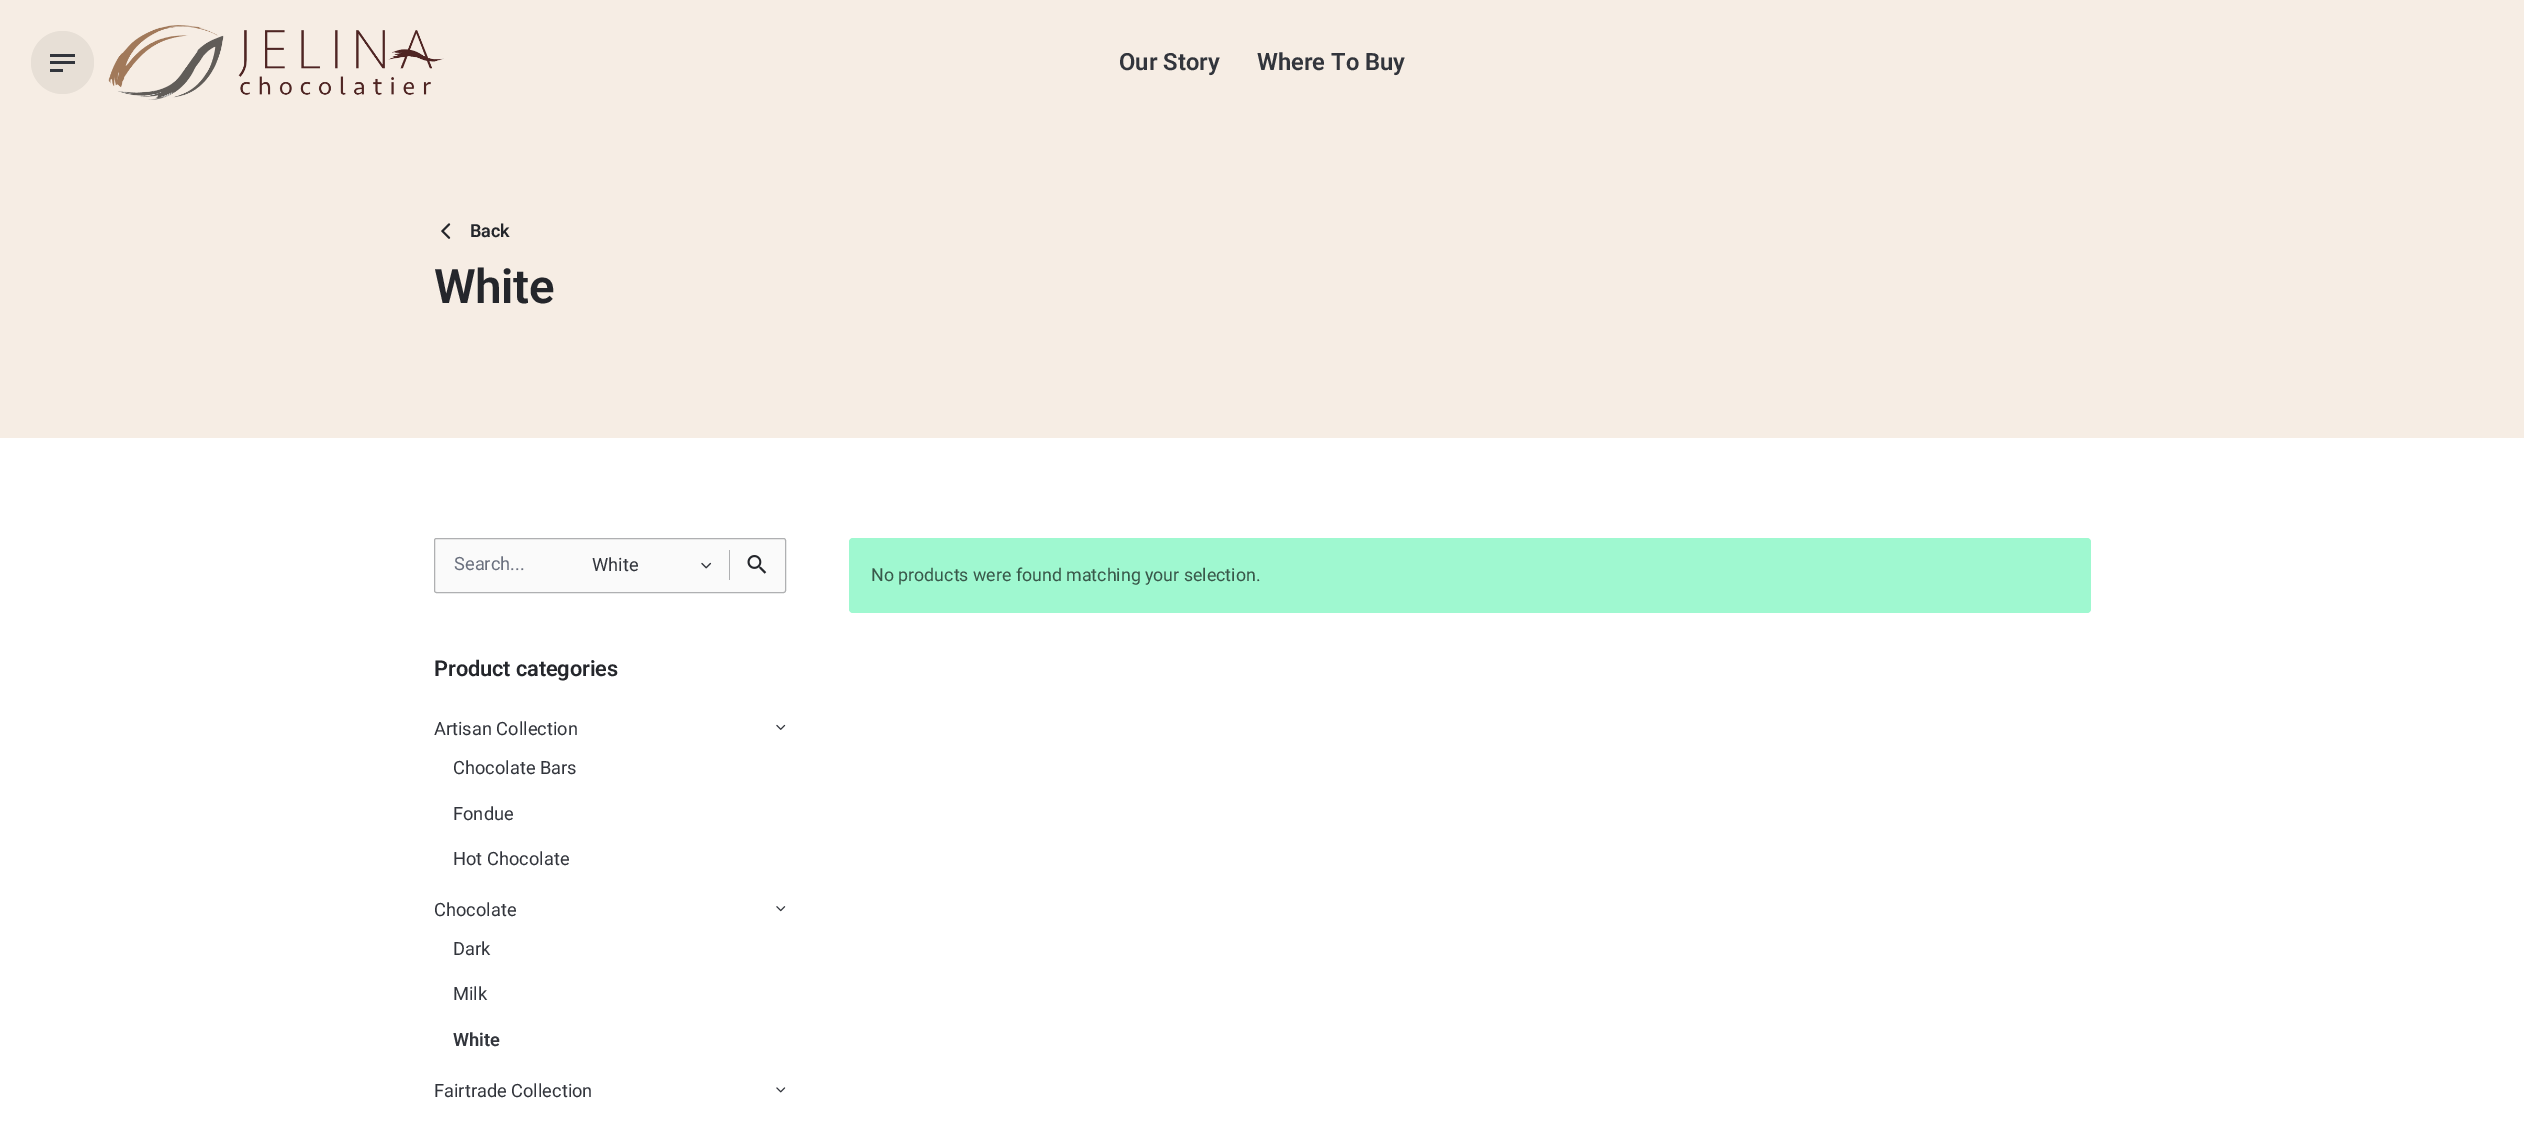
%!PS
<< /PageSize [2524 1130] >> setpagedevice
/rgb { dup -16 bitshift 255 div exch dup -8 bitshift 255 and 255 div exch 255 and 255 div setrgbcolor } def
/font { [ exch dup neg 0 0 3 -1 roll 0 0 ] selectfont } def
/text { moveto show } def
/circle { newpath 0 360 arc closepath } def
/roundrect { 5 dict begin { /r /h /w /y /x } { exch def } forall
  x r add y moveto x w add y 2 copy h add r arct x w add y h add x 1 index r arct
  x y h add x y r arct x y 2 copy exch w add exch r arct closepath end } def
/picture { 5 dict begin { /h /w /y /x /name } { exch def } forall
  gsave x y translate w h scale
  w h 8 [w 0 0 h 0 0] name (r) file false 3 colorimage grestore end } def
0 1130 translate 1 -1 scale
4 setmiterlimit
/s1 { /Roboto-SemiBold 23.75 font 16#32353C rgb } def
/s2 { /Roboto-SemiBold 18 font 16#24262B rgb } def
/s3 { /Roboto-Regular 18.25 font 16#6A707E rgb } def
/s4 { /Roboto-Regular 18.25 font 16#32353C rgb } def
/s5 { /Roboto-SemiBold 18.25 font 16#32353C rgb } def
/s6 { /Roboto-Regular 17.8 font 16#385749 rgb } def
16#FFFFFF rgb
0 0 2524 1130 rectfill
16#F6EDE4 rgb
0 0 2524 438 rectfill
16#E7DFD6 rgb
62.5 62.5 31.5 circle fill
16#32353C rgb
50 54 25 3 rectfill
50 61 25 3 rectfill
50 69 13 3 rectfill
(pic1.raw) 108 25 336 75 picture
s1
(Our Story) 1119 70 text
(Where To Buy) 1257 70 text
(pic2.raw) 441 223 10 16 picture
s2
(Back) 470 237 text
/Roboto-SemiBold 47.5 font
434 303 moveto -0.5 0 (White) ashow
16#FAFAFA rgb
434.5 538.5 351 54 2 roundrect gsave fill grestore
16#AFB0B2 rgb
stroke
s3
(Search...) 454 570 text
s4
(White) 592 571 text
(pic3.raw) 701 562 11 7 picture
16#AFB0B2 rgb
729 550 1 30 rectfill
(pic4.raw) 747 555 20 19 picture
/Roboto-SemiBold 21.75 font
16#24262B rgb
434 676 moveto -0.1 0 (Product categories) ashow
s4
(Artisan Collection) 434 735 text
(pic5.raw) 776 724 10 6 picture
(Chocolate Bars) 453 774 text
(Fondue) 453 820 text
(Hot Chocolate) 453 865 text
(Chocolate) 434 916 text
(pic6.raw) 776 906 10 6 picture
(Dark) 453 955 text
(Milk) 453 1000 text
s5
(White) 453 1046 text
s4
(Fairtrade Collection) 434 1097 text
(pic7.raw) 776 1087 10 6 picture
16#9FF8D0 rgb
849 538 1242 75 4 roundrect fill
s6
(No products were found matching your selection.) 871 581 text
showpage
